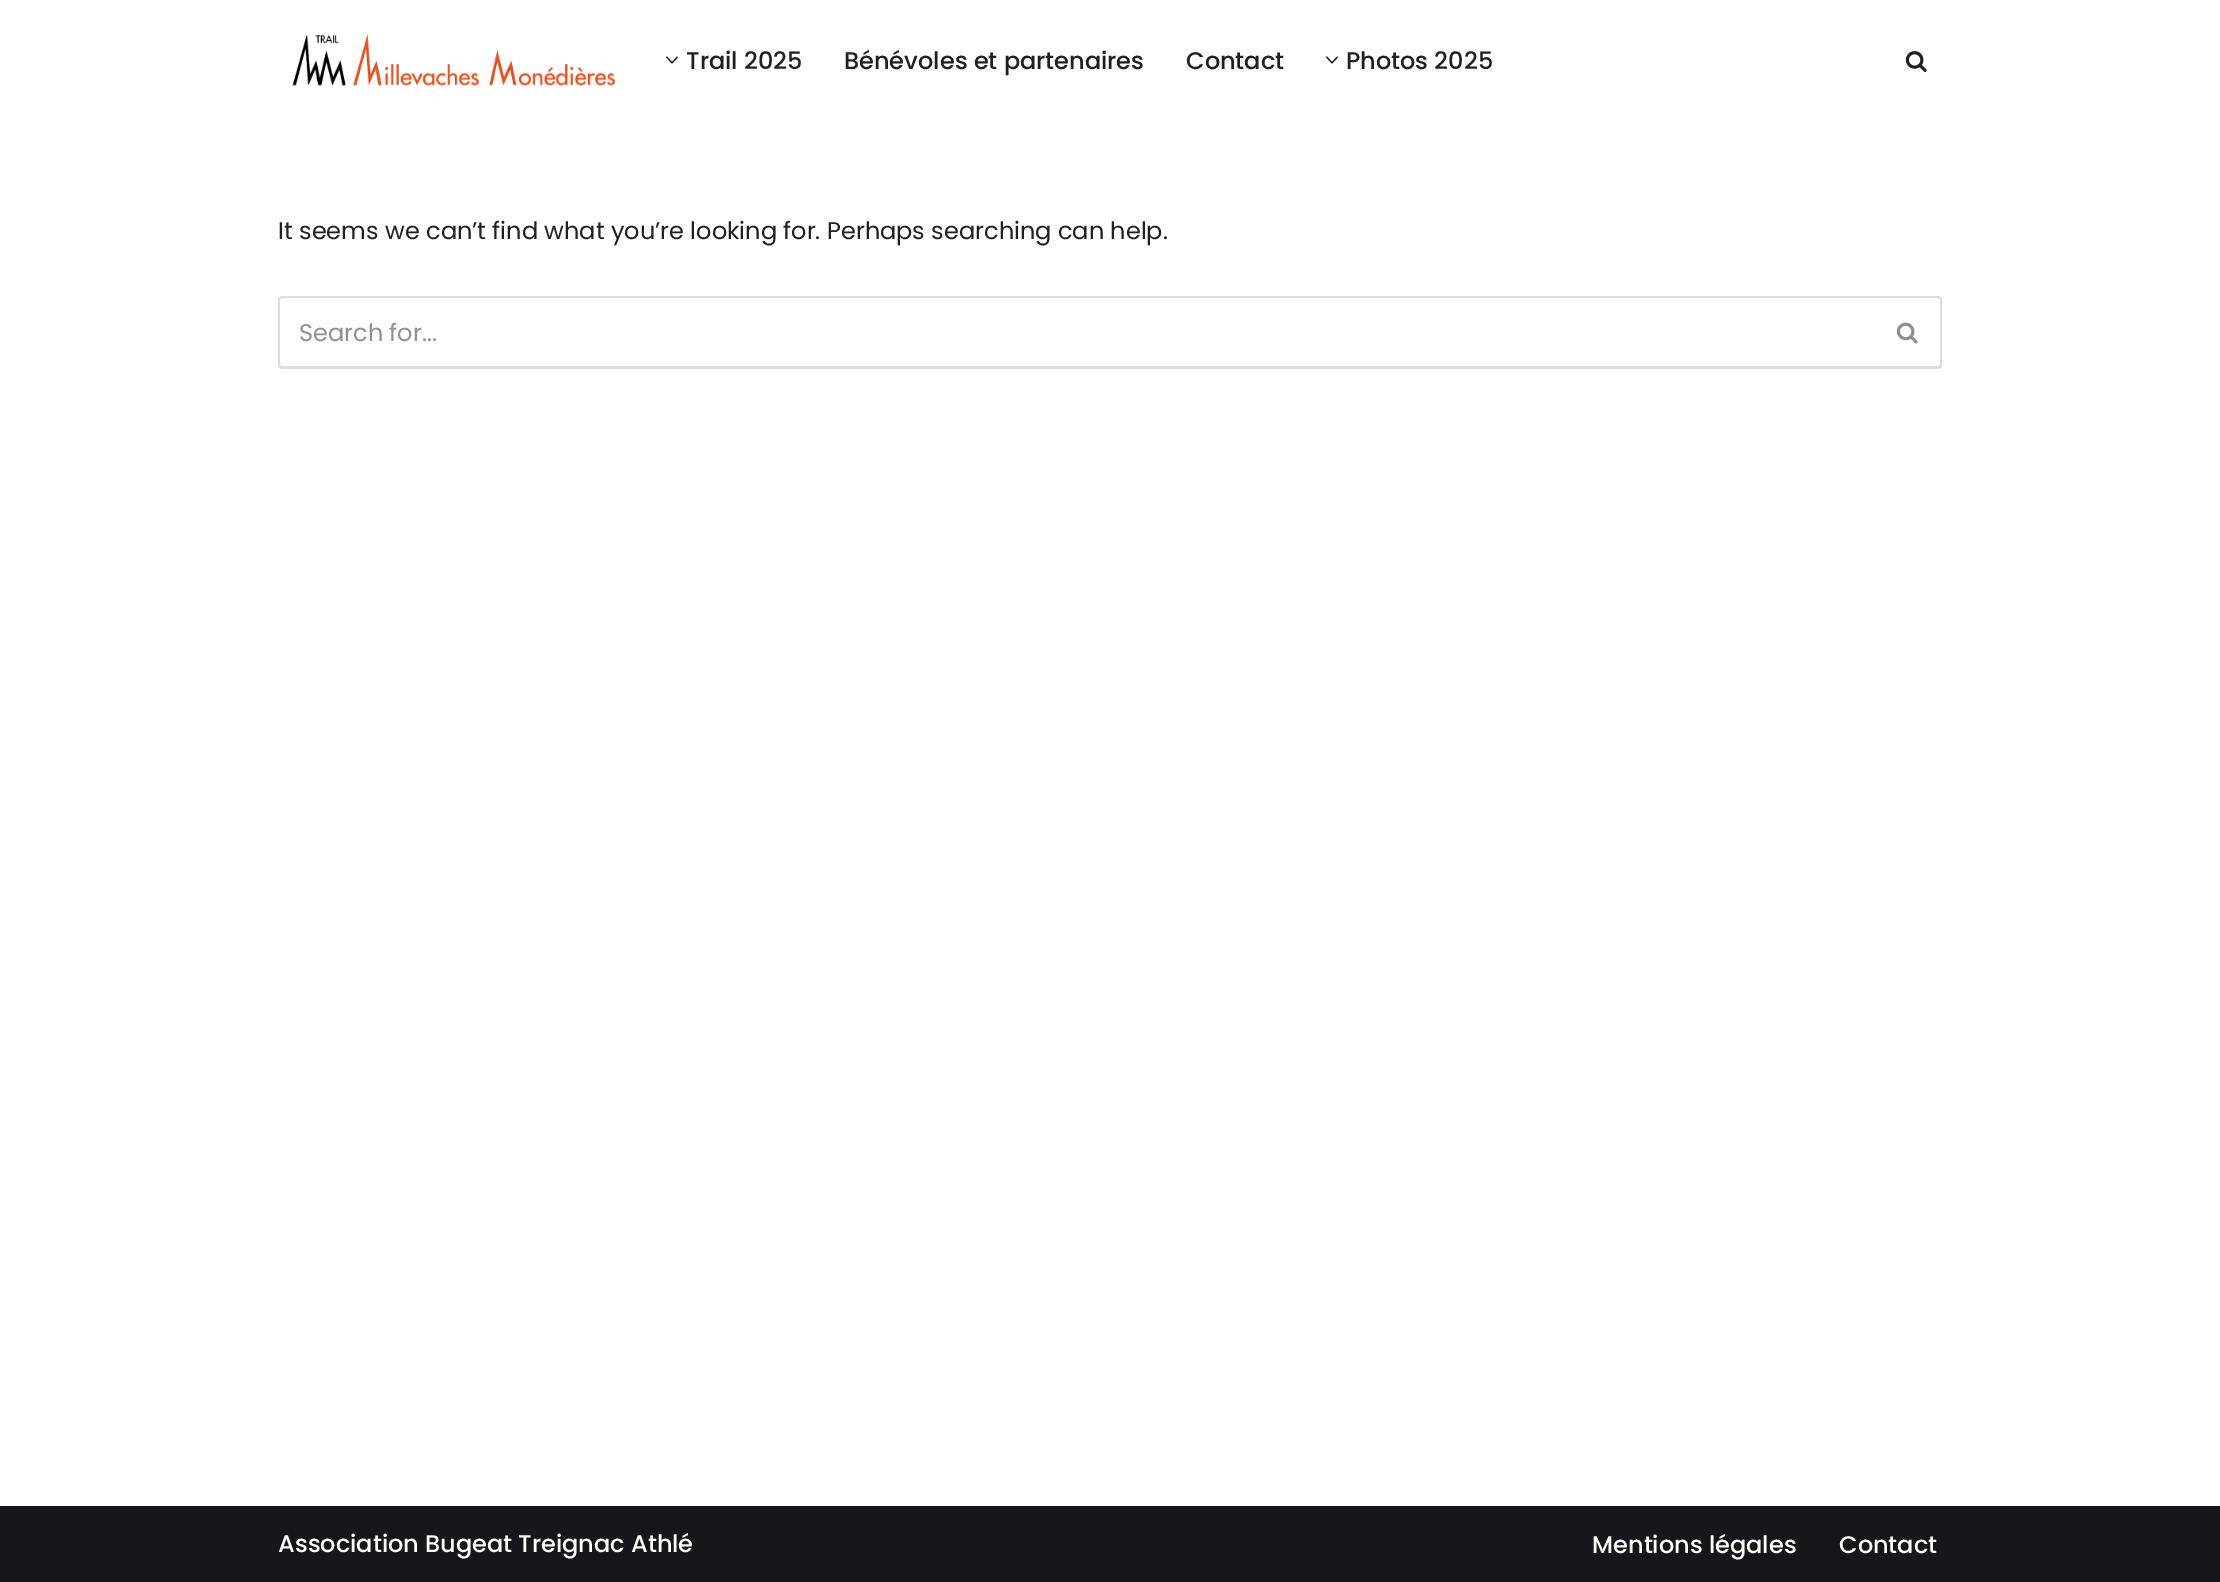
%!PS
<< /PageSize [2220 1582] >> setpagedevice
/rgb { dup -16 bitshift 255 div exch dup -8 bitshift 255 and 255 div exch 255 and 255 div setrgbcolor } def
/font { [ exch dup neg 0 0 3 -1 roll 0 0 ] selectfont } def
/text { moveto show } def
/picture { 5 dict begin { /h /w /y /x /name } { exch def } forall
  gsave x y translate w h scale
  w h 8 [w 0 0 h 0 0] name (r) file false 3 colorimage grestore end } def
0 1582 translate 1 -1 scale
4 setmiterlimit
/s1 { /Poppins-Medium 24 font 16#1F2025 rgb } def
/s2 { /Poppins-Regular 24 font 16#1F2025 rgb } def
/s3 { /Poppins-Regular 24 font 16#8F9092 rgb } def
/s4 { /Poppins-Medium 24 font 16#FFFFFF rgb } def
16#FFFFFF rgb
0 0 2220 1582 rectfill
(pic1.raw) 292 34 323 52 picture
(pic2.raw) 666 56 12 8 picture
s1
(Trail 2025) 686 69 text
(Bénévoles et partenaires) 844 69 text
(Contact) 1186 69 text
(pic2.raw) 1326 56 12 8 picture
(Photos 2025) 1346 69 text
(pic3.raw) 1905 51 22 21 picture
s2
(It seems we can’t find what you’re looking for. Perhaps searching can help.) 278 239 text
16#DDDDDD rgb
282 296 moveto 1875 296 lineto 1875 369 lineto 282 369 lineto 280 369 278 367 278 364 curveto 278 300 lineto 278 298 280 296 282 296 curveto closepath 282 298 moveto 1875 298 lineto 1875 366 lineto 282 366 lineto 281 366 280 365 280 364 curveto 280 300 lineto 280 299 281 298 282 298 curveto closepath eofill
s3
(Search for...) 299 341 text
16#DDDDDD rgb
1875 296 moveto 1938 296 lineto 1940 296 1942 298 1942 300 curveto 1942 364 lineto 1942 367 1940 369 1938 369 curveto 1875 369 lineto closepath 1875 298 moveto 1938 298 lineto 1939 298 1940 299 1940 300 curveto 1940 364 lineto 1940 365 1939 366 1938 366 curveto 1875 366 lineto closepath eofill
(pic4.raw) 1896 322 22 22 picture
16#14171C rgb
0 1506 2220 76 rectfill
s4
(Association Bugeat Treignac Athlé) 278 1552 text
(Mentions légales) 1592 1553 text
(Contact) 1839 1553 text
showpage
